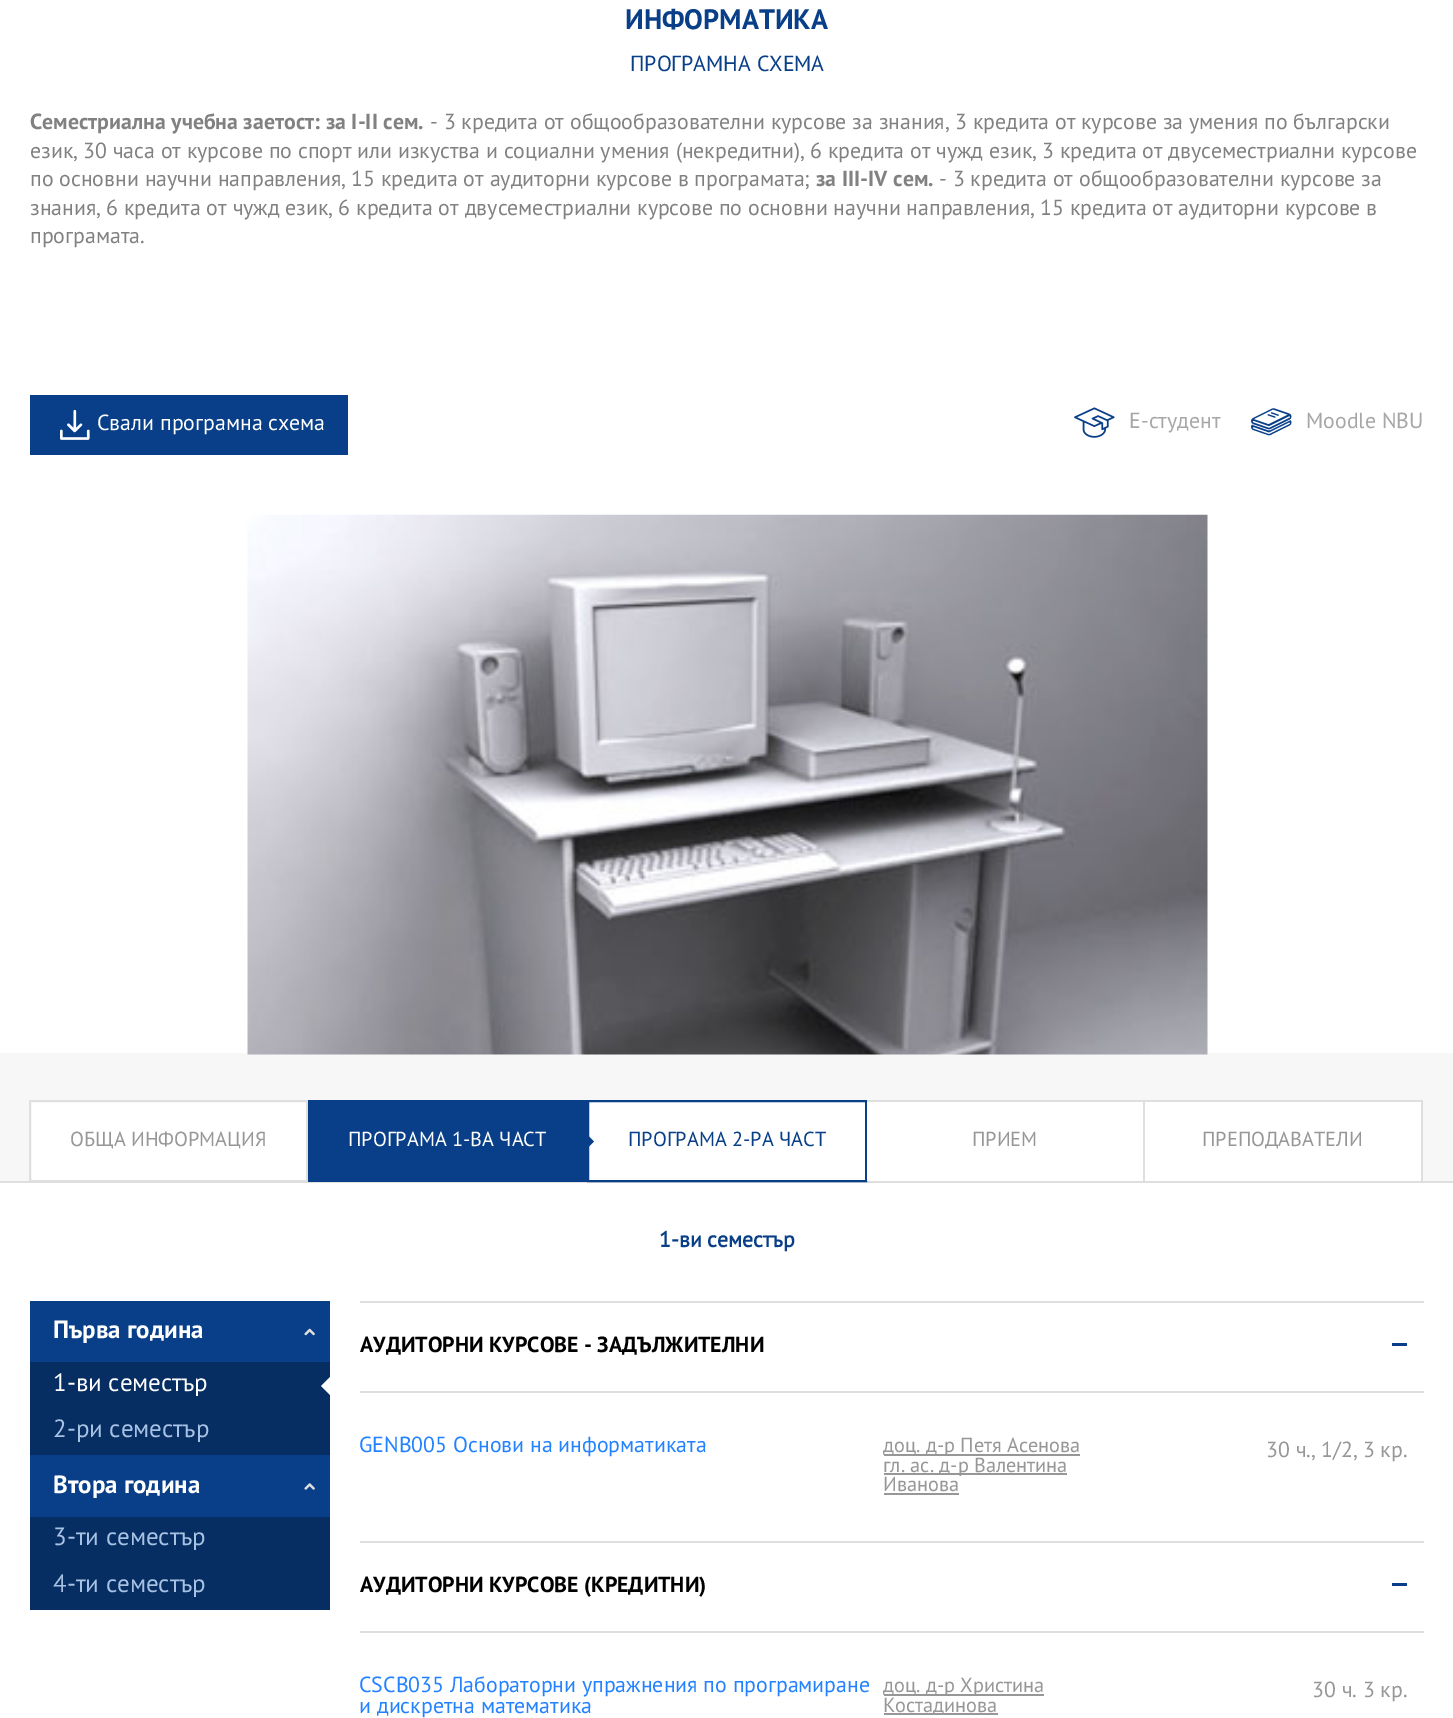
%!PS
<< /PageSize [1453 1718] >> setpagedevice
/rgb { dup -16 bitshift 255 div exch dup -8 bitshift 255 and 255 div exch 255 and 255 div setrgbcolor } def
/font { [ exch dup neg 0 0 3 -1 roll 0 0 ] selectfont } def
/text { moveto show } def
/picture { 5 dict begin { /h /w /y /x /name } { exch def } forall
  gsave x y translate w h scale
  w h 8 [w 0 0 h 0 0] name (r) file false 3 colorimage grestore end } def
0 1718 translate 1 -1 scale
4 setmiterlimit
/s1 { /PTSans-Bold 27 font 16#083F88 rgb } def
/s2 { /PTSans-Regular 21 font 16#083F88 rgb } def
/s3 { /PTSans-Bold 21 font 16#818181 rgb } def
/s4 { /PTSans-Regular 21 font 16#818181 rgb } def
/s5 { /PTSans-Regular 21 font 16#FFFFFF rgb } def
/s6 { /PTSans-Regular 21 font 16#A7A7A7 rgb } def
/s7 { /PTSans-Regular 19.5 font 16#979797 rgb } def
/s8 { /PTSans-Regular 19.5 font 16#FFFFFF rgb } def
/s9 { /PTSans-Regular 19.5 font 16#083F88 rgb } def
/s10 { /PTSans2-Bold 21 font 16#083F88 rgb } def
/s11 { /PTSans-Bold 24 font 16#FFFFFF rgb } def
/s12 { /PTSans-Regular 24 font 16#FFFFFF rgb } def
/s13 { /PTSans-Regular 24 font 16#A8C2E4 rgb } def
/s14 { /PTSans-Bold 21 font 16#000000 rgb } def
/s15 { /PTSans-Regular 21 font 16#2382FF rgb } def
/s16 { /PTSans-Regular 21 font 16#979797 rgb } def
16#FFFFFF rgb
0 0 1453 1718 rectfill
s1
(ИНФОРМАТИКА) 625 29 text
s2
(ПРОГРАМНА СХЕМА) 630 71 text
s3
(Семестриална учебна заетост: за І-II сем.) 30 129 text
s4
(- 3 кредита от общообразователни курсове за знания, 3 кредита от курсове за умения по български) 430 129 text
(език, 30 часа от курсове по спорт или изкуства и социални умения \(некредитни\), 6 кредита от чужд език, 3 кредита от двусеместриални курсове) 30 158 text
(по основни научни направления, 15 кредита от аудиторни курсове в програмата;) 30 186 text
s3
(за III-IV сем.) 816 186 text
s4
(- 3 кредита от общообразователни курсове за) 939 186 text
(знания, 6 кредита от чужд език, 6 кредита от двусеместриални курсове по основни научни направления, 15 кредита от аудиторни курсове в) 30 215 text
(програмата.) 30 243 text
16#083F88 rgb
30 395 318 60 rectfill
(pic1.raw) 60 409 30 31 picture
s5
(Свали програмна схема) 97 430 text
(pic2.raw) 1074 407 41 31 picture
s6
(Е-студент) 1129 428 text
(pic3.raw) 1251 408 41 28 picture
(Moodle NBU) 1306 428 text
16#F7F7F7 rgb
0 1053 1453 128 rectfill
(pic4.raw) 247 514 961 541 picture
16#DFDFDF rgb
0 1181 1453 2 rectfill
16#FFFFFF rgb
30 1101 moveto 307 1101 lineto 307 1181 lineto 30 1181 lineto closepath gsave fill grestore
16#DFDFDF rgb
2 setlinewidth
stroke
s7
(ОБЩА ИНФОРМАЦИЯ) 70 1146 text
16#083F88 rgb
308 1100 279 82 rectfill
s8
(ПРОГРАМА 1-ВА ЧАСТ) 348 1146 text
588 1101 moveto 866 1101 lineto 866 1181 lineto 588 1181 lineto closepath gsave fill grestore
16#083F88 rgb
stroke
585 1150.5 moveto 585 1132.5 lineto 594 1141.5 lineto closepath fill
(ПРОГРАМА 2-РА ЧАСТ) 628 1146 text
16#FFFFFF rgb
867 1102 276 79 rectfill
16#DFDFDF rgb
867 1100 555 2 rectfill
1143 1100 2 82 rectfill
s7
(ПРИЕМ) 972 1146 text
16#FFFFFF rgb
1145 1102 276 79 rectfill
16#DFDFDF rgb
1421 1100 2 82 rectfill
s7
(ПРЕПОДАВАТЕЛИ) 1202 1146 text
s10
(1-ви семестър) 659 1247 text
30 1301 300 216 rectfill
s11
(Първа година) 53 1338 text
(pic5.raw) 304 1328 11 8 picture
16#062E63 rgb
30 1362 300 93 rectfill
s12
(1-ви семестър) 53 1391 text
330 1377 moveto 330 1395 lineto 321 1386 lineto closepath fill
s13
(2-ри семестър) 53 1437 text
s11
(Втора година) 53 1493 text
(pic6.raw) 304 1483 11 7 picture
16#062E63 rgb
30 1517 300 93 rectfill
s13
(3-ти семестър) 53 1545 text
(4-ти семестър) 53 1592 text
16#DFDFDF rgb
360 1301 1064 2 rectfill
360 1391 1064 2 rectfill
s14
(АУДИТОРНИ КУРСОВЕ - ЗАДЪЛЖИТЕЛНИ) 360 1352 text
16#083F88 rgb
1392 1343 15 3 rectfill
s15
(GENB005 Основи на информатиката) 359 1452 text
16#979797 rgb
884 1454 196 2 rectfill
s7
(доц. д-р Петя Асенова) 883 1452 text
884 1473 183 2 rectfill
(гл. ас. д-р Валентина) 883 1472 text
(Иванова) 883 1491 text
884 1493 75 2 rectfill
s16
(30 ч., 1/2, 3 кр.) 1266 1457 text
16#DFDFDF rgb
360 1541 1064 2 rectfill
360 1631 1064 2 rectfill
s14
(АУДИТОРНИ КУРСОВЕ \(КРЕДИТНИ\)) 360 1592 text
16#083F88 rgb
1392 1583 15 3 rectfill
s15
(CSCB035 Лабораторни упражнения по програмиране) 359 1692 text
(и дискретна математика) 359 1713 text
16#979797 rgb
884 1694 160 2 rectfill
s7
(доц. д-р Христина) 883 1692 text
884 1713 114 2 rectfill
(Костадинова) 883 1712 text
s16
(30 ч. 3 кр.) 1312 1697 text
showpage
